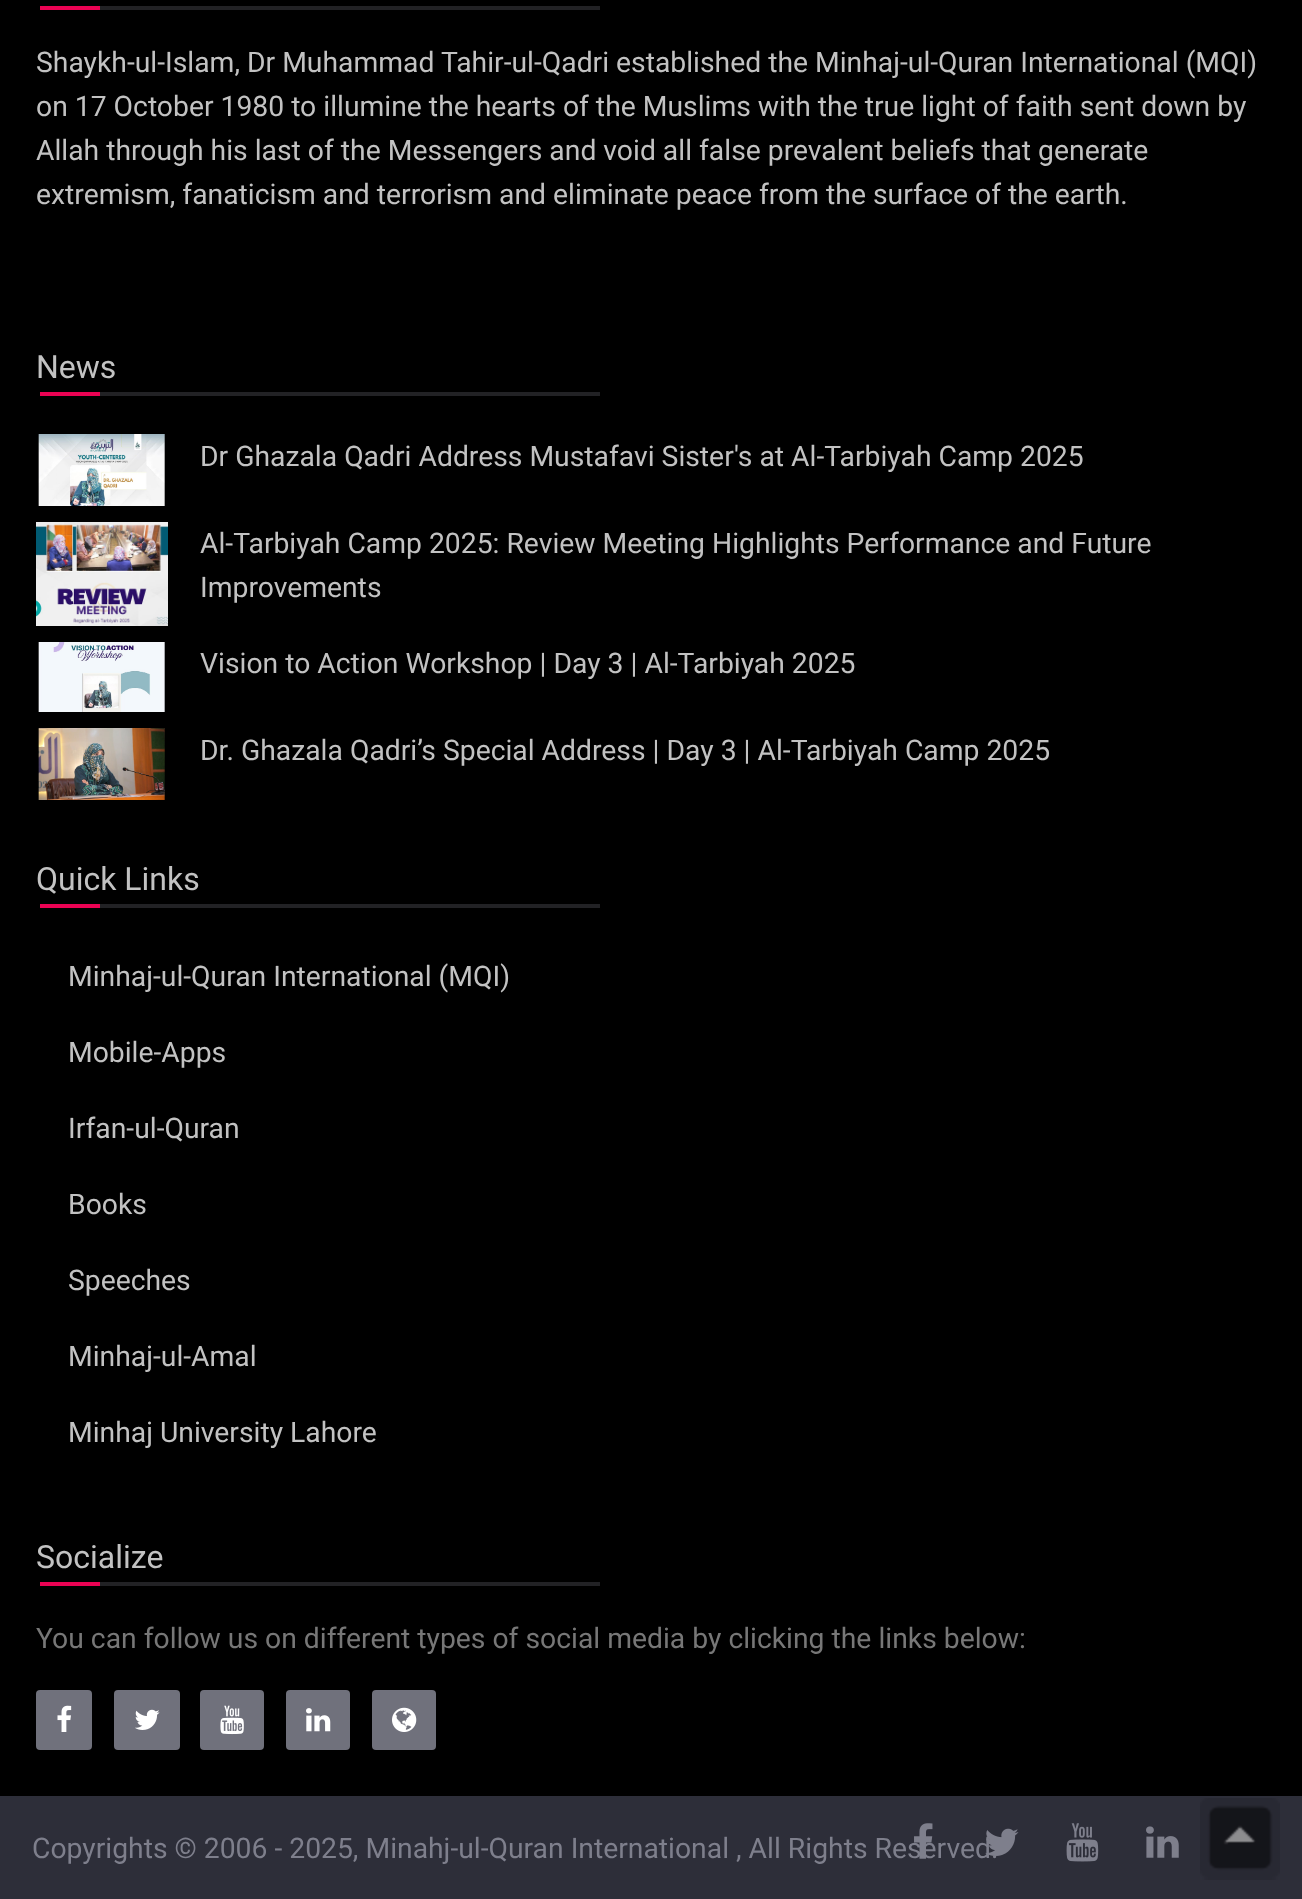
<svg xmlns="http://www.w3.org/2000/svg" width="1302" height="1899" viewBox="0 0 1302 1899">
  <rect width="100%" height="100%" fill="#000"/>
  <path d="M40 6h60v4H40z" fill="#ea0253"/>
  <path d="M100 6h500v4H100z" fill="#222225"/>
  <path d="M40 392h60v4H40z" fill="#ea0253"/>
  <path d="M100 392h500v4H100z" fill="#222225"/>
  <image x="38" y="434" width="127" height="72" href="img/1.png"/>
  <image x="36" y="522" width="132" height="104" href="img/2.png"/>
  <image x="38" y="642" width="127" height="70" href="img/3.png"/>
  <image x="38" y="728" width="127" height="72" href="img/4.png"/>
  <path d="M40 904h60v4H40z" fill="#ea0253"/>
  <path d="M100 904h500v4H100z" fill="#222225"/>
  <path d="M40 1582h60v4H40z" fill="#ea0253"/>
  <path d="M100 1582h500v4H100z" fill="#222225"/>
  <rect x="36" y="1690" width="56" height="60" rx="4" fill="#70717c"/>
  <image x="57" y="1705" width="15" height="27" href="img/5.png"/>
  <rect x="114" y="1690" width="66" height="60" rx="4" fill="#70717c"/>
  <image x="135" y="1709" width="25" height="21" href="img/6.png"/>
  <rect x="200" y="1690" width="64" height="60" rx="4" fill="#70717c"/>
  <image x="220" y="1705" width="24" height="30" href="img/7.png"/>
  <rect x="286" y="1690" width="64" height="60" rx="4" fill="#70717c"/>
  <image x="306" y="1708" width="25" height="24" href="img/8.png"/>
  <rect x="372" y="1690" width="64" height="60" rx="4" fill="#70717c"/>
  <image x="392" y="1707" width="25" height="25" href="img/9.png"/>
  <path d="M0 1796h1302v103H0z" fill="#2d2e39"/>
  <image x="1066" y="1823" width="33" height="39" href="img/12.png"/>
  <image x="1146" y="1826" width="33" height="32" href="img/13.png"/>
  <image x="1200" y="1798" width="80" height="82" href="img/14.png"/>
  <g font-family="Roboto" font-size="28.3" fill="#c2c2c2">
    <text x="36" y="72">Shaykh-ul-Islam, Dr Muhammad Tahir-ul-Qadri established the Minhaj-ul-Quran International (MQI)</text>
    <text x="36" y="116">on 17 October 1980 to illumine the hearts of the Muslims with the true light of faith sent down by</text>
    <text x="36" y="160">Allah through his last of the Messengers and void all false prevalent beliefs that generate</text>
    <text x="36" y="204">extremism, fanaticism and terrorism and eliminate peace from the surface of the earth.</text>
  </g>
  <text x="36" y="378" font-family="Roboto" font-size="32" fill="#c2c2c2">News</text>
  <g font-family="Roboto" font-size="28.3" fill="#c2c2c2">
    <text x="200" y="466">Dr Ghazala Qadri Address Mustafavi Sister's at Al-Tarbiyah Camp 2025</text>
    <text x="200" y="553">Al-Tarbiyah Camp 2025: Review Meeting Highlights Performance and Future</text>
    <text x="200" y="597">Improvements</text>
    <text x="200" y="673">Vision to Action Workshop | Day 3 | Al-Tarbiyah 2025</text>
    <text x="200" y="760">Dr. Ghazala Qadri’s Special Address | Day 3 | Al-Tarbiyah Camp 2025</text>
  </g>
  <text x="36" y="890" font-family="Roboto" font-size="32" fill="#c2c2c2">Quick Links</text>
  <g font-family="Roboto" font-size="28.3" fill="#c2c2c2">
    <text x="68" y="986">Minhaj-ul-Quran International (MQI)</text>
    <text x="68" y="1062">Mobile-Apps</text>
    <text x="68" y="1138">Irfan-ul-Quran</text>
    <text x="68" y="1214">Books</text>
    <text x="68" y="1290">Speeches</text>
    <text x="68" y="1366">Minhaj-ul-Amal</text>
    <text x="68" y="1442">Minhaj University Lahore</text>
  </g>
  <text x="36" y="1568" font-family="Roboto" font-size="32" fill="#c2c2c2">Socialize</text>
  <text x="36" y="1648" font-family="Roboto" font-size="28.3" fill="#777">You can follow us on different types of social media by clicking the links below:</text>
  <text x="32" y="1858" font-family="Roboto" font-size="28.3" fill="#7e7f8c">Copyrights © 2006 - 2025, Minahj-ul-Quran International , All Rights Reserved.</text>
  <image x="914" y="1823" width="19" height="36" href="img/10.png"/>
  <image x="985" y="1828" width="34" height="28" href="img/11.png"/>
</svg>
